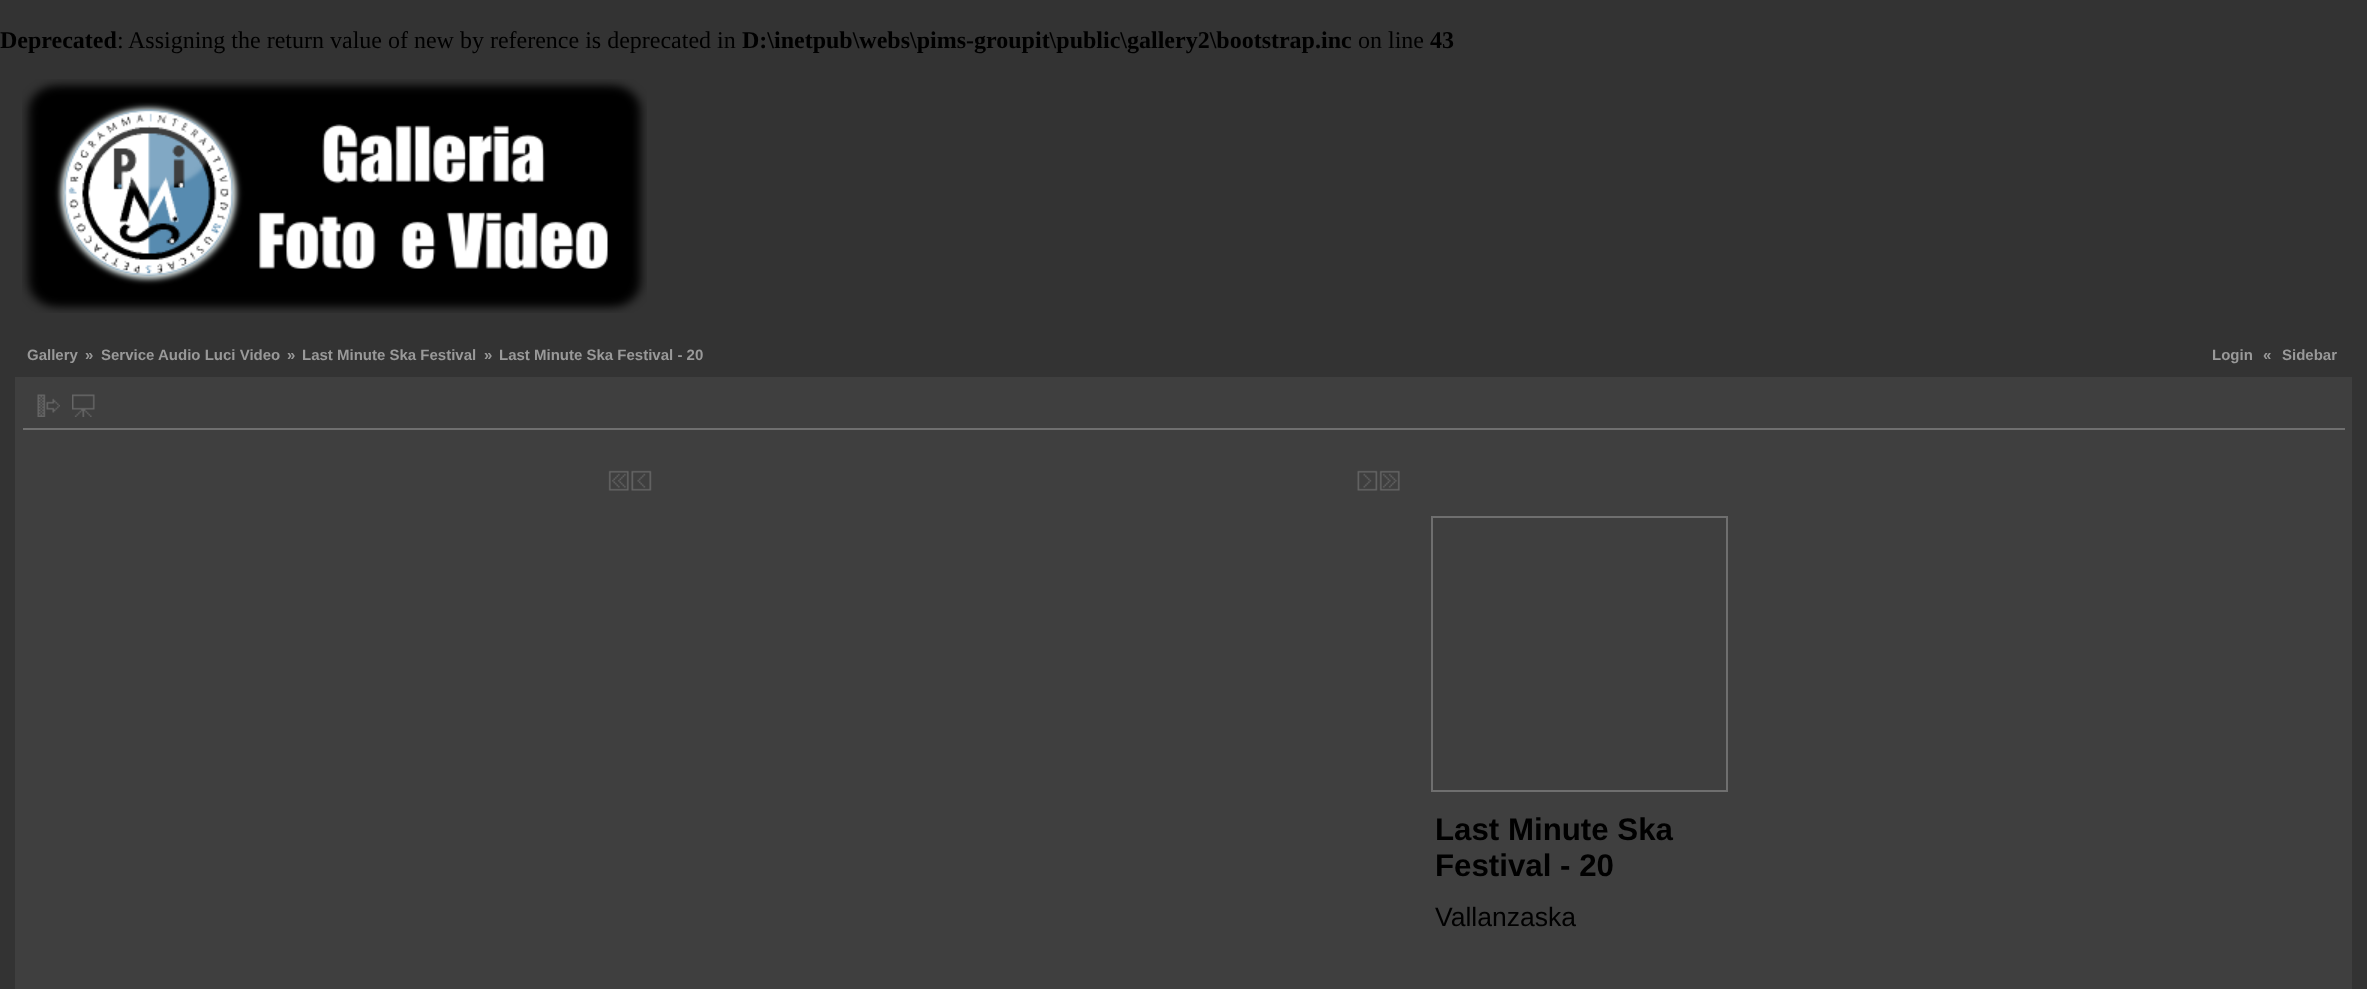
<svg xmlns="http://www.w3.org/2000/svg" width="2367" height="989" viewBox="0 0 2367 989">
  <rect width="100%" height="100%" fill="#333"/>
  <image x="22" y="79" width="625" height="234" href="img/1.png"/>
  <path d="M15 377h2337v612H15z" fill="#3f3f3f"/>
  <path d="M23 428h2322v2H23z" fill="#6f6f6f"/>
  <image x="37" y="394" width="23" height="23" href="img/2.png"/>
  <image x="72" y="394" width="23" height="23" href="img/3.png"/>
  <image x="608" y="470" width="21" height="21" href="img/4.png"/>
  <image x="631" y="470" width="21" height="21" href="img/5.png"/>
  <image x="1357" y="470" width="21" height="21" href="img/6.png"/>
  <image x="1379" y="470" width="21" height="21" href="img/7.png"/>
  <path d="M1432 517h295v274H1432z" fill="none" stroke="#6f6f6f" stroke-width="2"/>
  <text x="0" y="48" font-family="Liberation Serif" font-size="24" font-weight="bold" fill="#000">Deprecated</text>
  <g font-family="Liberation Serif" font-size="24" fill="#000">
    <text x="117" y="48">:</text>
    <text x="128" y="48">Assigning the return value of new by reference is deprecated in</text>
  </g>
  <text x="742" y="48" font-family="Liberation Serif" font-size="24" font-weight="bold" fill="#000">D:\inetpub\webs\pims-groupit\public\gallery2\bootstrap.inc</text>
  <text x="1358" y="48" font-family="Liberation Serif" font-size="24" fill="#000">on line</text>
  <text x="1430" y="48" font-family="Liberation Serif" font-size="24" font-weight="bold" fill="#000">43</text>
  <g font-family="Liberation Sans" font-size="15" font-weight="bold" fill="#999">
    <text x="27" y="360">Gallery</text>
    <text x="85" y="360">»</text>
    <text x="101" y="360">Service Audio Luci Video</text>
    <text x="287" y="360">»</text>
    <text x="302" y="360">Last Minute Ska Festival</text>
    <text x="484" y="360">»</text>
    <text x="499" y="360">Last Minute Ska Festival - 20</text>
    <text x="2212" y="360">Login</text>
    <text x="2263" y="360">«</text>
    <text x="2282" y="360">Sidebar</text>
  </g>
  <g font-family="Liberation Sans" font-size="31.25" font-weight="bold" fill="#000">
    <text x="1435" y="840">Last Minute Ska</text>
    <text x="1435" y="876">Festival - 20</text>
  </g>
  <text x="1435" y="926" font-family="Liberation Sans" font-size="26.5" fill="#000">Vallanzaska</text>
</svg>
